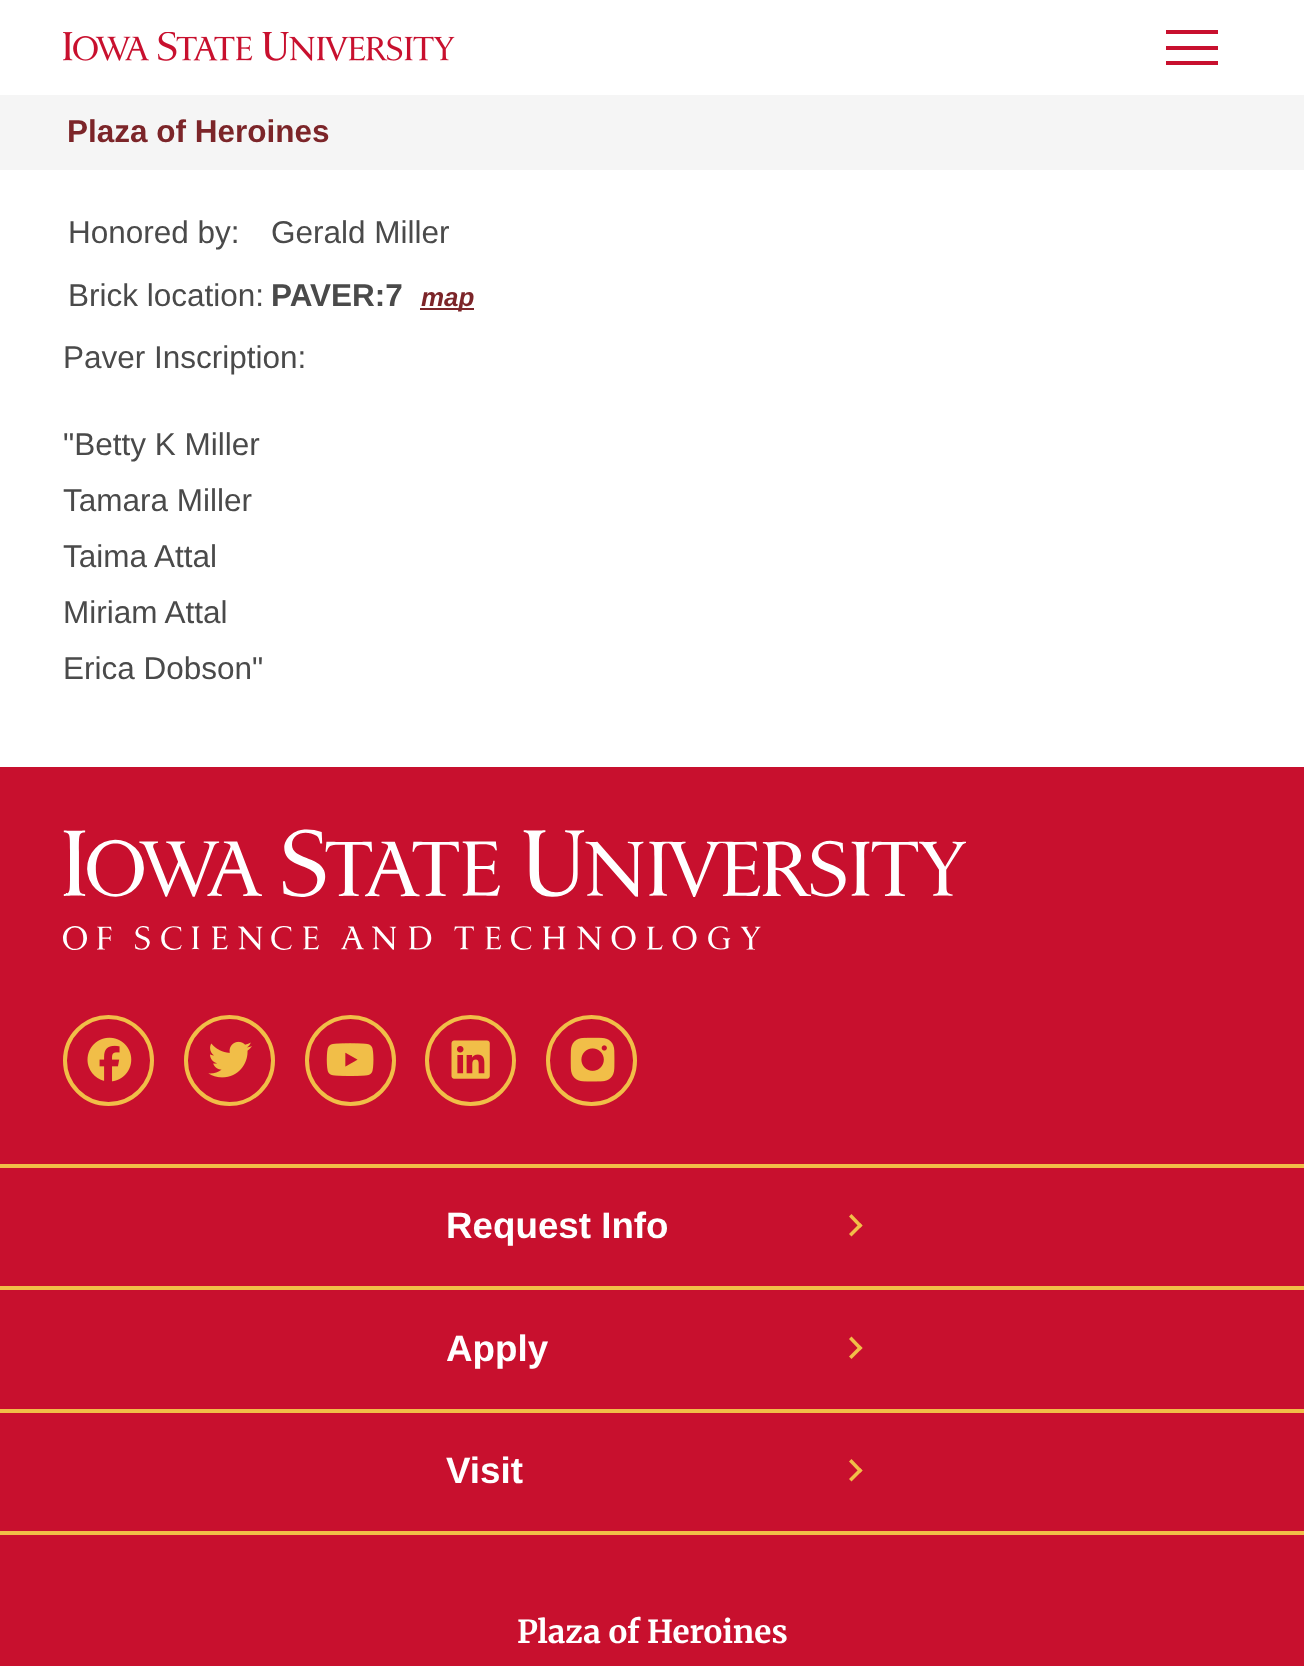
<svg xmlns="http://www.w3.org/2000/svg" width="1304" height="1666" viewBox="0 0 1304 1666">
  <rect width="100%" height="100%" fill="#fff"/>
  <path d="M1166 30h52v4H1166z" fill="#c8102e"/>
  <path d="M1166 46h52v4H1166z" fill="#c8102e"/>
  <path d="M1166 61h52v4H1166z" fill="#c8102e"/>
  <image x="63" y="32" width="392" height="29" href="img/1.png"/>
  <path d="M0 95h1304v75H0z" fill="#f5f5f5"/>
  <path d="M420 308h54v2H420z" fill="#7c2529"/>
  <path d="M0 767h1304v899H0z" fill="#c8102e"/>
  <image x="63" y="829" width="903" height="121" href="img/2.png"/>
  <circle cx="108.5" cy="1060.5" r="43.5" fill="none" stroke="#f1be48" stroke-width="4"/>
  <image x="87" y="1037" width="45" height="45" href="img/3.png"/>
  <circle cx="229.5" cy="1060.5" r="43.5" fill="none" stroke="#f1be48" stroke-width="4"/>
  <image x="208" y="1041" width="44" height="37" href="img/4.png"/>
  <circle cx="350.5" cy="1060.5" r="43.5" fill="none" stroke="#f1be48" stroke-width="4"/>
  <image x="326" y="1043" width="48" height="33" href="img/5.png"/>
  <circle cx="470.5" cy="1060.5" r="43.5" fill="none" stroke="#f1be48" stroke-width="4"/>
  <image x="451" y="1040" width="39" height="39" href="img/6.png"/>
  <circle cx="591.5" cy="1060.5" r="43.5" fill="none" stroke="#f1be48" stroke-width="4"/>
  <image x="570" y="1037" width="45" height="45" href="img/7.png"/>
  <path d="M0 1164h1304v4H0z" fill="#f1be48"/>
  <path d="M0 1286h1304v4H0z" fill="#f1be48"/>
  <path d="M849 1216.5L851.5 1214L862.5 1225.5L860 1228Z" fill="#f1be48"/>
  <path d="M849 1234L860 1223L862.5 1225.5L851.5 1236.5Z" fill="#f1be48"/>
  <path d="M0 1409h1304v4H0z" fill="#f1be48"/>
  <path d="M849 1339L851.5 1336.5L862.5 1348L860 1350.5Z" fill="#f1be48"/>
  <path d="M849 1356.5L860 1345.5L862.5 1348L851.5 1359Z" fill="#f1be48"/>
  <path d="M0 1531h1304v4H0z" fill="#f1be48"/>
  <path d="M849 1461.5L851.5 1459L862.5 1470.5L860 1473Z" fill="#f1be48"/>
  <path d="M849 1479L860 1468L862.5 1470.5L851.5 1481.5Z" fill="#f1be48"/>
  <text x="67" y="142" font-family="Liberation Sans" font-size="31.5" font-weight="bold" fill="#7c2529">Plaza of Heroines</text>
  <g font-family="Liberation Sans" font-size="31.5" fill="#4a4a4a">
    <text x="68" y="243">Honored by:</text>
    <text x="271" y="243">Gerald Miller</text>
    <text x="68" y="306">Brick location:</text>
  </g>
  <text x="271" y="306" font-family="Liberation Sans" font-size="31.5" font-weight="bold" fill="#4a4a4a">PAVER:7</text>
  <text x="421" y="306" font-family="Liberation Sans" font-size="26" font-weight="bold" font-style="italic" fill="#7c2529">map</text>
  <g font-family="Liberation Sans" font-size="31.5" fill="#4a4a4a">
    <text x="63" y="368">Paver Inscription:</text>
    <text x="63" y="455">"Betty K Miller</text>
    <text x="63" y="511">Tamara Miller</text>
    <text x="63" y="567">Taima Attal</text>
    <text x="63" y="623">Miriam Attal</text>
    <text x="63" y="679">Erica Dobson"</text>
  </g>
  <g font-family="Liberation Sans" font-size="36.75" font-weight="bold" fill="#fff">
    <text x="446" y="1238">Request Info</text>
    <text x="446" y="1361">Apply</text>
    <text x="446" y="1483">Visit</text>
  </g>
  <text x="517" y="1643" font-family="Merriweather" font-size="31.5" font-weight="bold" fill="#fff">Plaza of Heroines</text>
</svg>
